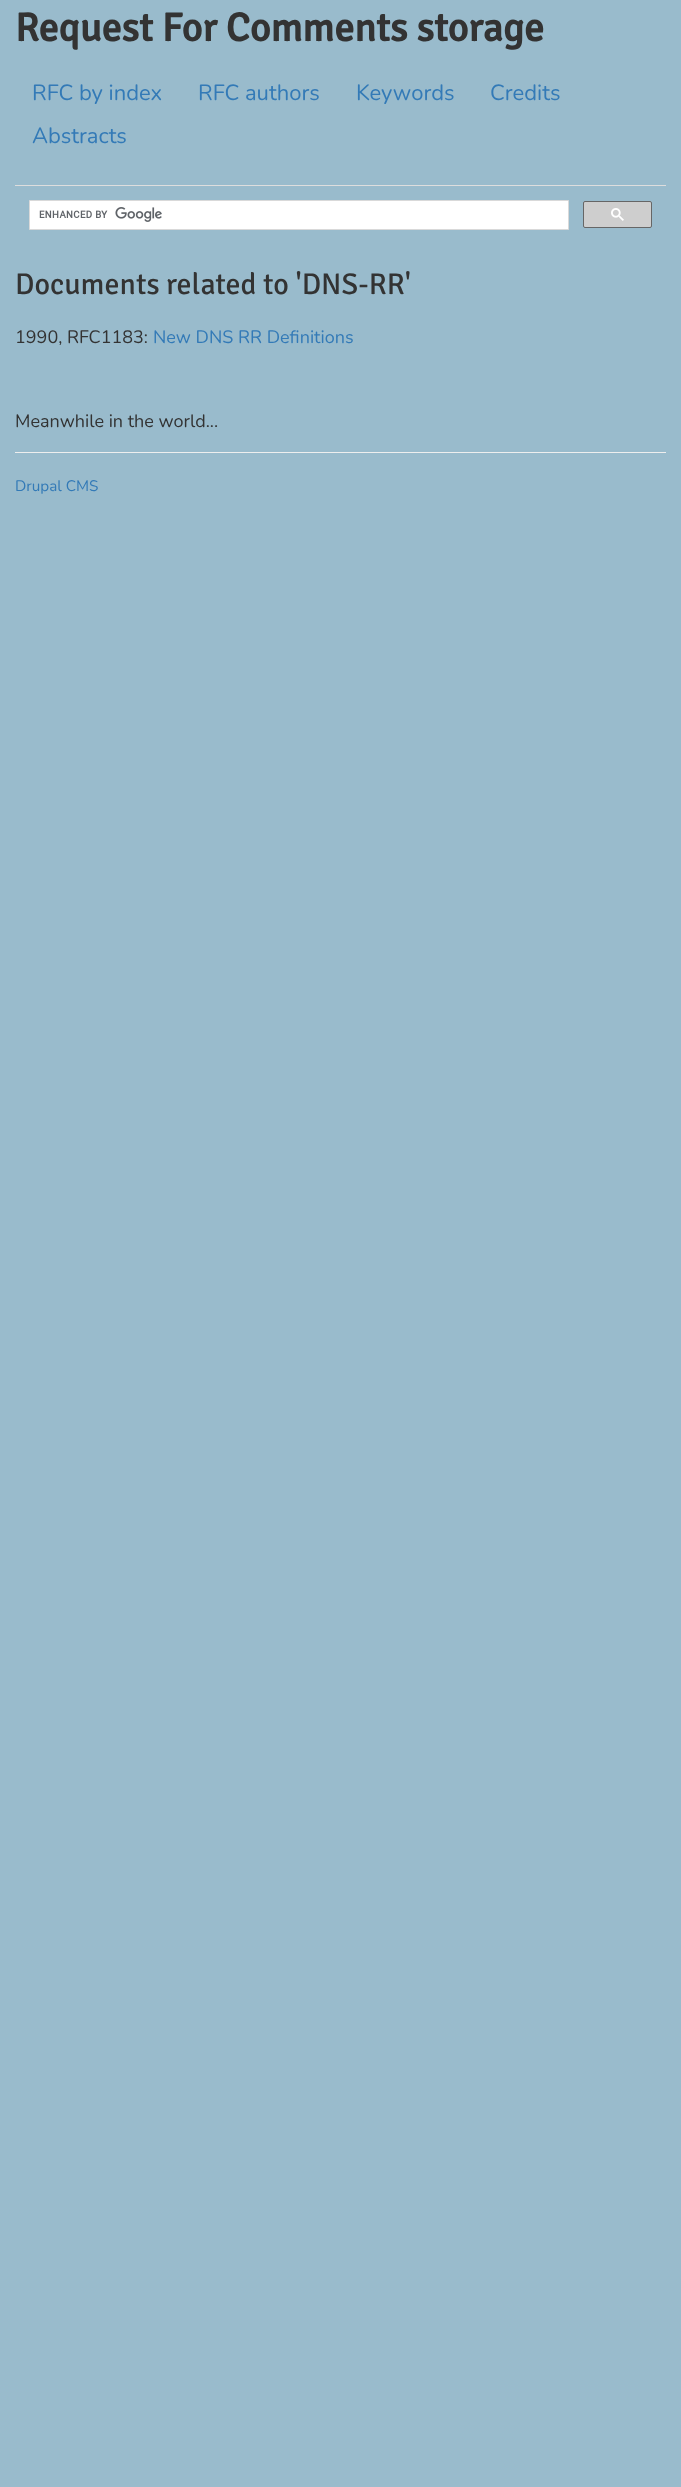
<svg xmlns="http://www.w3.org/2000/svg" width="681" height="2487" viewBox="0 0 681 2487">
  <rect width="100%" height="100%" fill="#9bc"/>
  <path d="M15 185h651v1H15z" fill="#ddd"/>
  <path d="M29.5 200.5h539v29H29.5z" fill="#fff" stroke="#d9d9d9"/>
  <image x="39" y="207" width="123" height="15" href="img/1.png"/>
  <rect x="583.5" y="201.5" width="68" height="26" rx="1.5" fill="#cecece" stroke="#666"/>
  <image x="611" y="208" width="13" height="13" href="img/2.png"/>
  <path d="M15 452h651v1H15z" fill="#eee"/>
  <text x="15" y="41" font-family="Signika" font-size="40" font-weight="bold" fill="#333">Request For Comments storage</text>
  <g font-family="Nunito" font-size="22" font-weight="200" fill="#337ab7">
    <text x="32" y="100">RFC by index</text>
    <text x="198" y="100">RFC authors</text>
    <text x="356" y="100">Keywords</text>
    <text x="490" y="100">Credits</text>
    <text x="32" y="143">Abstracts</text>
  </g>
  <text x="15" y="294" font-family="Signika" font-size="30" font-weight="300" fill="#333">Documents related to 'DNS-RR'</text>
  <text x="15" y="343" font-family="Nunito" font-size="18" font-weight="200" fill="#333">1990, RFC1183:</text>
  <text x="153" y="343" font-family="Nunito" font-size="18" font-weight="200" fill="#337ab7">New DNS RR Definitions</text>
  <text x="15" y="427" font-family="Nunito" font-size="18" font-weight="200" fill="#333">Meanwhile in the world...</text>
  <text x="15" y="491" font-family="Nunito" font-size="15.25" font-weight="200" fill="#337ab7">Drupal CMS</text>
</svg>
